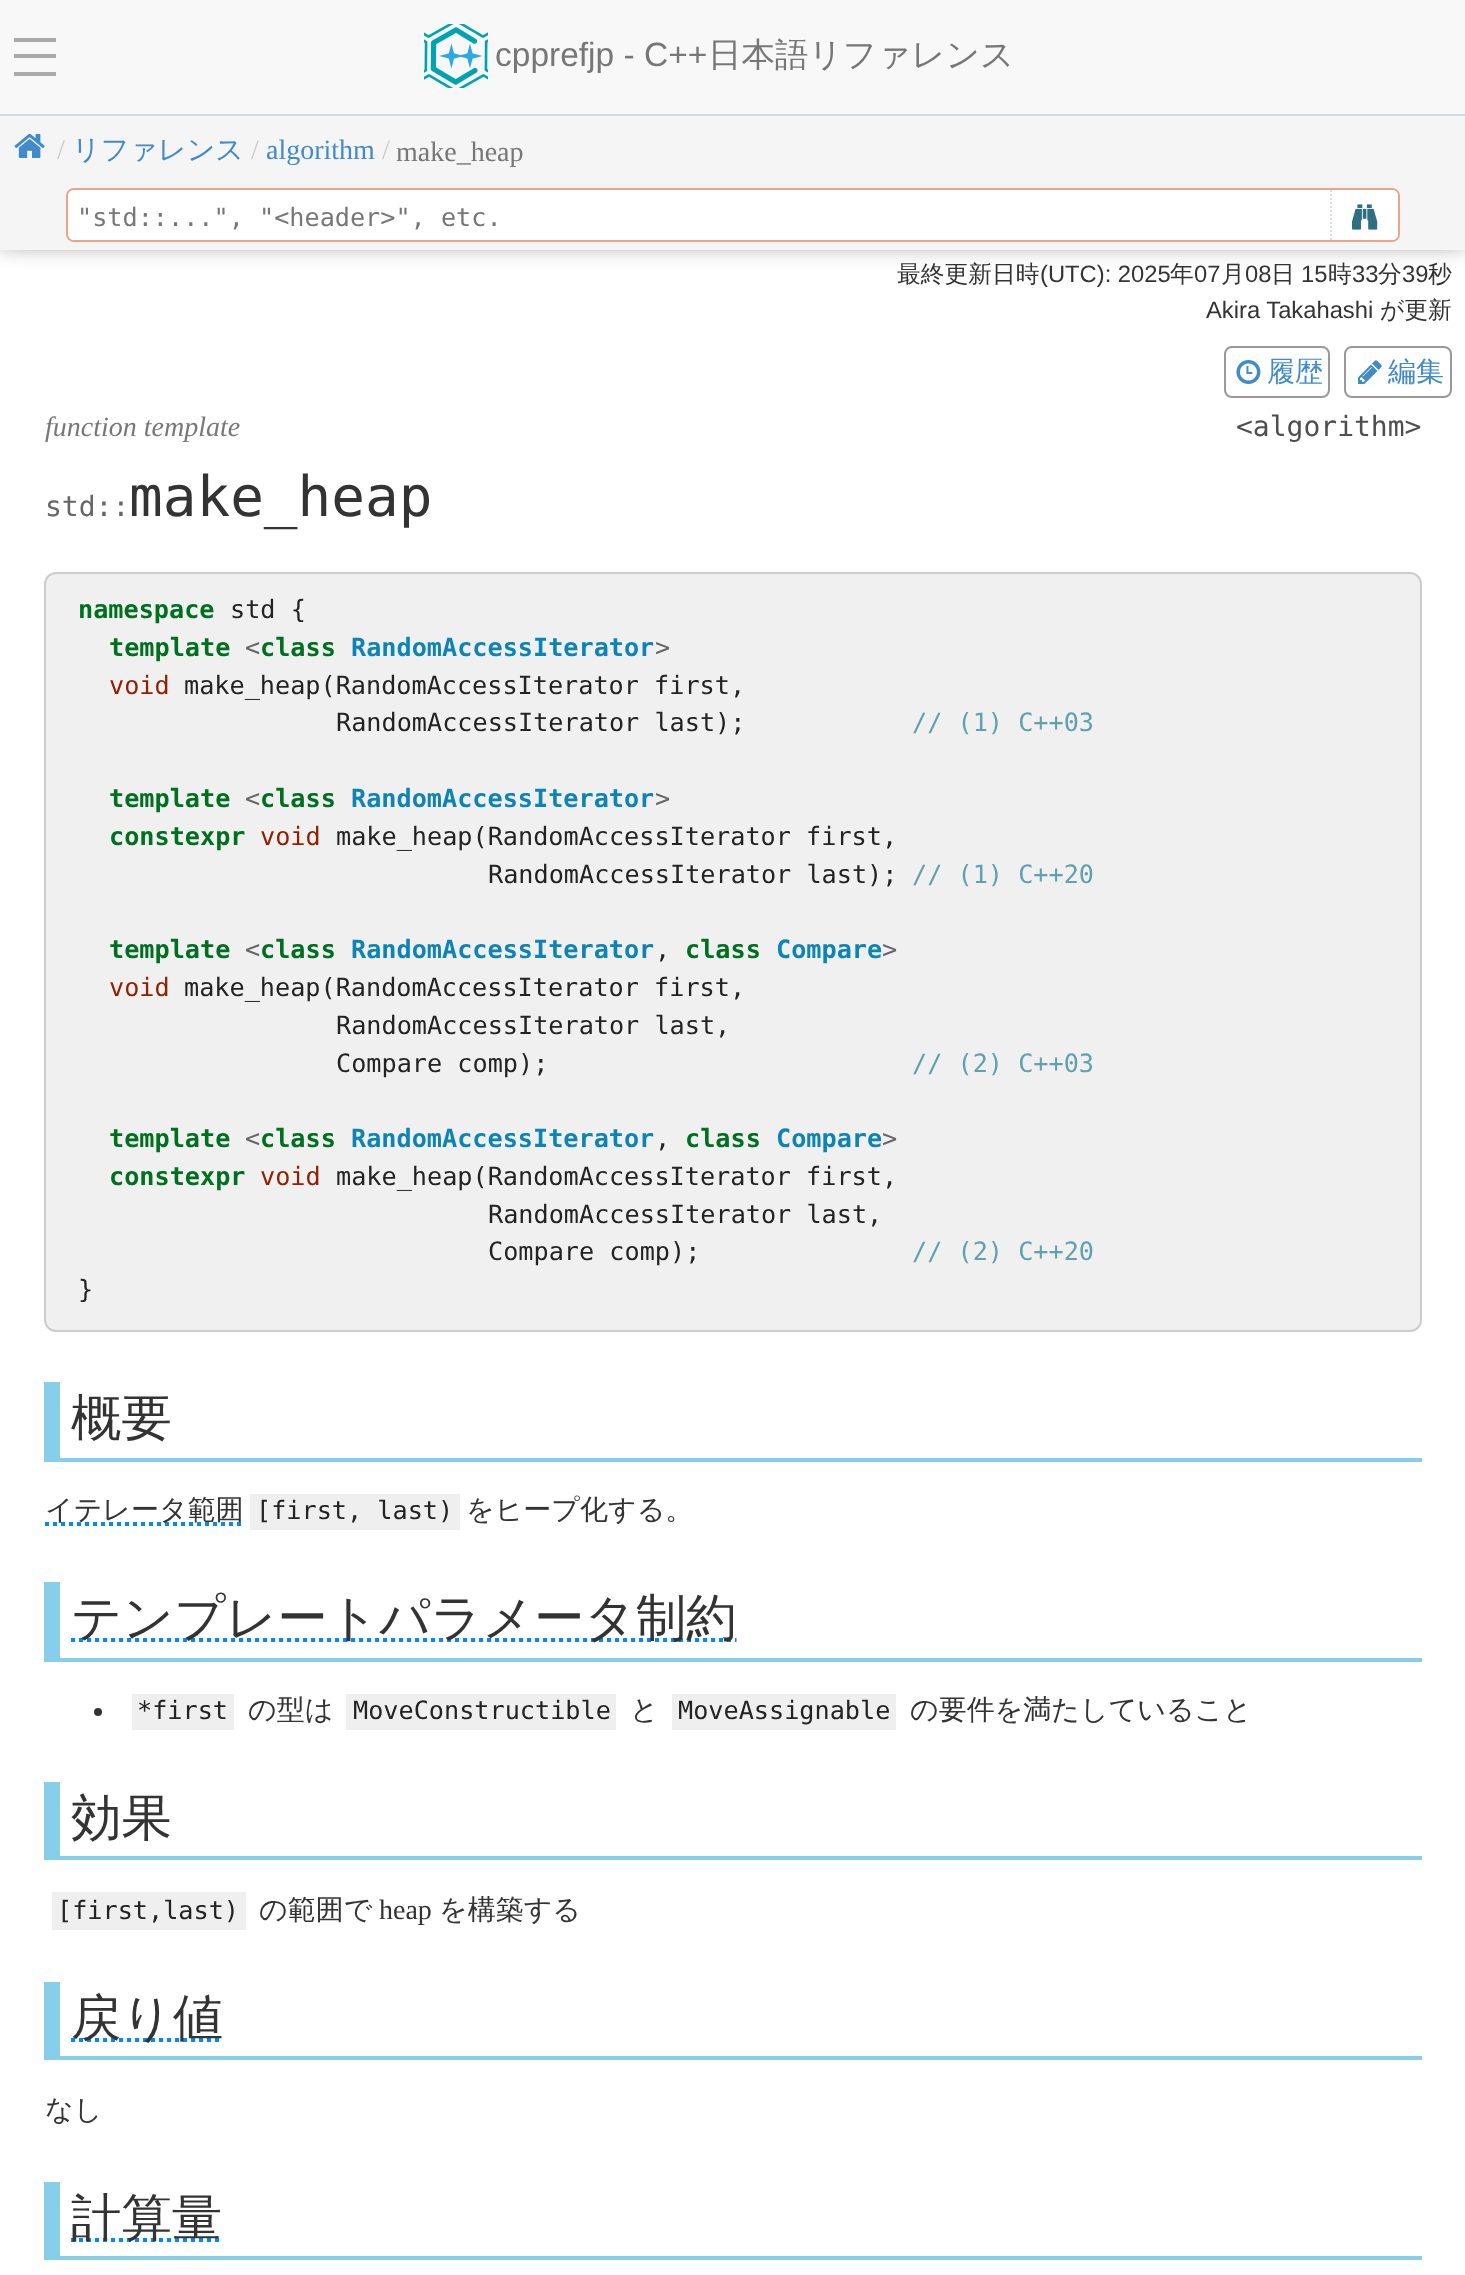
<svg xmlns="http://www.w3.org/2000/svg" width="1465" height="2275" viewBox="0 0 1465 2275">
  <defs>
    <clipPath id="clip1"><rect x="68" y="190" width="1330" height="50" rx="6"/></clipPath>
  </defs>
  <rect width="100%" height="100%" fill="#fff"/>
  <path d="M0 108h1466v134H0z" fill="#14141499" filter="blur(12px)"/>
  <path d="M0 0h1465v114H0z" fill="#f8f8f8"/>
  <path d="M0 114h1465v2H0z" fill="#d0dce0"/>
  <path d="M14 38h42v4H14z" fill="#aaa"/>
  <path d="M14 54h42v4H14z" fill="#aaa"/>
  <path d="M14 72h42v4H14z" fill="#aaa"/>
  <image x="424" y="24" width="64" height="64" href="img/1.png"/>
  <path d="M0 116h1465v134H0z" fill="#f5f5f5"/>
  <image x="14" y="134" width="31" height="24" href="img/2.png"/>
  <rect x="67" y="189" width="1332" height="52" rx="7" fill="none" stroke="#eba487" stroke-width="2"/>
  <rect x="68" y="190" width="1330" height="50" rx="6" fill="#fff"/>
  <path d="M1330 190H1392C1395.5 190 1398 192.5 1398 196V234C1398 237.5 1395.5 240 1392 240H1330Z" fill="#fff"/>
  <g clip-path="url(#clip1)">
    <path d="M1331 190V244" fill="none" stroke="#ddd" stroke-width="2" stroke-dasharray="2 2"/>
  </g>
  <image x="1352" y="204" width="26" height="26" href="img/3.png"/>
  <rect x="1225" y="347" width="104" height="50" rx="7" fill="none" stroke="#999" stroke-width="2"/>
  <image x="1236" y="360" width="25" height="24" href="img/4.png"/>
  <rect x="1345" y="347" width="106" height="50" rx="7" fill="none" stroke="#999" stroke-width="2"/>
  <image x="1358" y="360" width="24" height="24" href="img/5.png"/>
  <rect x="45" y="573" width="1376" height="758" rx="11" fill="#f0f0f0" stroke="#ccc" stroke-width="2"/>
  <path d="M60 1458h1362v4H60z" fill="#87ceeb"/>
  <path d="M44 1382h16v80H44z" fill="#87ceeb"/>
  <path d="M45 1524H243.5" fill="none" stroke="#08f" stroke-width="4" stroke-dasharray="4 4"/>
  <path d="M250 1494h210v36H250z" fill="#efefef"/>
  <path d="M60 1658h1362v4H60z" fill="#87ceeb"/>
  <path d="M44 1582h16v80H44z" fill="#87ceeb"/>
  <path d="M71 1640H736.5" fill="none" stroke="#08f" stroke-width="4" stroke-dasharray="4 4"/>
  <circle cx="98" cy="1712" r="4" fill="#333"/>
  <path d="M132 1694h102v36H132z" fill="#efefef"/>
  <path d="M346 1694h270v36H346z" fill="#efefef"/>
  <path d="M672 1694h224v36H672z" fill="#efefef"/>
  <path d="M60 1856h1362v4H60z" fill="#87ceeb"/>
  <path d="M44 1782h16v78H44z" fill="#87ceeb"/>
  <path d="M52 1892h194v38H52z" fill="#efefef"/>
  <path d="M60 2056h1362v4H60z" fill="#87ceeb"/>
  <path d="M44 1982h16v78H44z" fill="#87ceeb"/>
  <path d="M71 2040H223" fill="none" stroke="#08f" stroke-width="4" stroke-dasharray="4 4"/>
  <path d="M60 2256h1362v4H60z" fill="#87ceeb"/>
  <path d="M44 2182h16v78H44z" fill="#87ceeb"/>
  <path d="M71 2240H222" fill="none" stroke="#08f" stroke-width="4" stroke-dasharray="4 4"/>
  <text x="495" y="66" font-family="Liberation Sans" font-size="33.5" fill="#777">cpprefjp - C++</text>
  <text x="708" y="66" font-family="WenQuanYi Zen Hei" font-size="33.5" font-weight="500" fill="#777">日本語リファレンス</text>
  <text x="57" y="159" font-family="Liberation Serif" font-size="28" fill="#ccc">/</text>
  <text x="72" y="159" font-family="WenQuanYi Zen Hei" font-size="28" font-weight="500" fill="#428bca">リファレンス</text>
  <text x="251" y="159" font-family="Liberation Serif" font-size="28" fill="#ccc">/</text>
  <text x="266" y="159" font-family="Liberation Serif" font-size="28" fill="#428bca">algorithm</text>
  <text x="382" y="159" font-family="Liberation Serif" font-size="28" fill="#ccc">/</text>
  <text x="396" y="161" font-family="Liberation Serif" font-size="28" fill="#777">make_heap</text>
  <text x="77" y="226" font-family="DejaVu Sans Mono" font-size="25.2" fill="#777">"std::...", "&lt;header&gt;", etc.</text>
  <text x="897" y="282" font-family="WenQuanYi Zen Hei" font-size="23.75" font-weight="500" fill="#333">最終更新日時</text>
  <text x="1040" y="282" font-family="Liberation Sans" font-size="23.75" fill="#333">(UTC): 2025</text>
  <text x="1170" y="282" font-family="WenQuanYi Zen Hei" font-size="23.75" font-weight="500" fill="#333">年</text>
  <text x="1194" y="282" font-family="Liberation Sans" font-size="23.75" fill="#333">07</text>
  <text x="1221" y="282" font-family="WenQuanYi Zen Hei" font-size="23.75" font-weight="500" fill="#333">月</text>
  <text x="1245" y="282" font-family="Liberation Sans" font-size="23.75" fill="#333">08</text>
  <text x="1271" y="282" font-family="WenQuanYi Zen Hei" font-size="23.75" font-weight="500" fill="#333">日</text>
  <text x="1301" y="282" font-family="Liberation Sans" font-size="23.75" fill="#333">15</text>
  <text x="1328" y="282" font-family="WenQuanYi Zen Hei" font-size="23.75" font-weight="500" fill="#333">時</text>
  <text x="1352" y="282" font-family="Liberation Sans" font-size="23.75" fill="#333">33</text>
  <text x="1378" y="282" font-family="WenQuanYi Zen Hei" font-size="23.75" font-weight="500" fill="#333">分</text>
  <text x="1402" y="282" font-family="Liberation Sans" font-size="23.75" fill="#333">39</text>
  <text x="1428" y="282" font-family="WenQuanYi Zen Hei" font-size="23.75" font-weight="500" fill="#333">秒</text>
  <text x="1206" y="318" font-family="Liberation Sans" font-size="23.75" fill="#333">Akira Takahashi</text>
  <text x="1380" y="318" font-family="WenQuanYi Zen Hei" font-size="23.75" font-weight="500" fill="#333">が更新</text>
  <g font-family="WenQuanYi Zen Hei" font-size="28" font-weight="500" fill="#428bca">
    <text x="1267" y="381">履歴</text>
    <text x="1388" y="381">編集</text>
  </g>
  <text x="45" y="436" font-family="Liberation Serif" font-size="28" font-style="italic" fill="#777">function template</text>
  <text x="1236" y="436" font-family="DejaVu Sans Mono" font-size="28" fill="#4e4e4e">&lt;algorithm&gt;</text>
  <text x="45" y="516" font-family="DejaVu Sans Mono" font-size="28" fill="#666">std::</text>
  <text x="129" y="516" font-family="DejaVu Sans Mono" font-size="56" fill="#333">make_heap</text>
  <text x="78" y="618" font-family="DejaVu Sans Mono" font-size="25.2" font-weight="bold" fill="#007020">namespace</text>
  <text x="230" y="618" font-family="DejaVu Sans Mono" font-size="25.2" fill="#232323">std {</text>
  <text x="109" y="656" font-family="DejaVu Sans Mono" font-size="25.2" font-weight="bold" fill="#007020">template</text>
  <text x="245" y="656" font-family="DejaVu Sans Mono" font-size="25.2" fill="#666">&lt;</text>
  <text x="260" y="656" font-family="DejaVu Sans Mono" font-size="25.2" font-weight="bold" fill="#007020">class</text>
  <text x="351" y="656" font-family="DejaVu Sans Mono" font-size="25.2" font-weight="bold" fill="#0e84b5">RandomAccessIterator</text>
  <text x="655" y="656" font-family="DejaVu Sans Mono" font-size="25.2" fill="#666">&gt;</text>
  <text x="109" y="694" font-family="DejaVu Sans Mono" font-size="25.2" fill="#902000">void</text>
  <g font-family="DejaVu Sans Mono" font-size="25.2" fill="#232323">
    <text x="184" y="694">make_heap(RandomAccessIterator first,</text>
    <text x="336" y="731">RandomAccessIterator last);</text>
  </g>
  <text x="912" y="731" font-family="DejaVu Sans Mono" font-size="25.2" fill="#60a0b0">// (1) C++03</text>
  <text x="109" y="807" font-family="DejaVu Sans Mono" font-size="25.2" font-weight="bold" fill="#007020">template</text>
  <text x="245" y="807" font-family="DejaVu Sans Mono" font-size="25.2" fill="#666">&lt;</text>
  <text x="260" y="807" font-family="DejaVu Sans Mono" font-size="25.2" font-weight="bold" fill="#007020">class</text>
  <text x="351" y="807" font-family="DejaVu Sans Mono" font-size="25.2" font-weight="bold" fill="#0e84b5">RandomAccessIterator</text>
  <text x="655" y="807" font-family="DejaVu Sans Mono" font-size="25.2" fill="#666">&gt;</text>
  <text x="109" y="845" font-family="DejaVu Sans Mono" font-size="25.2" font-weight="bold" fill="#007020">constexpr</text>
  <text x="260" y="845" font-family="DejaVu Sans Mono" font-size="25.2" fill="#902000">void</text>
  <g font-family="DejaVu Sans Mono" font-size="25.2" fill="#232323">
    <text x="336" y="845">make_heap(RandomAccessIterator first,</text>
    <text x="488" y="883">RandomAccessIterator last);</text>
  </g>
  <text x="912" y="883" font-family="DejaVu Sans Mono" font-size="25.2" fill="#60a0b0">// (1) C++20</text>
  <text x="109" y="958" font-family="DejaVu Sans Mono" font-size="25.2" font-weight="bold" fill="#007020">template</text>
  <text x="245" y="958" font-family="DejaVu Sans Mono" font-size="25.2" fill="#666">&lt;</text>
  <text x="260" y="958" font-family="DejaVu Sans Mono" font-size="25.2" font-weight="bold" fill="#007020">class</text>
  <text x="351" y="958" font-family="DejaVu Sans Mono" font-size="25.2" font-weight="bold" fill="#0e84b5">RandomAccessIterator</text>
  <text x="685" y="958" font-family="DejaVu Sans Mono" font-size="25.2" font-weight="bold" fill="#007020">class</text>
  <text x="776" y="958" font-family="DejaVu Sans Mono" font-size="25.2" font-weight="bold" fill="#0e84b5">Compare</text>
  <text x="882" y="958" font-family="DejaVu Sans Mono" font-size="25.2" fill="#666">&gt;</text>
  <text x="655" y="958" font-family="DejaVu Sans Mono" font-size="25.2" fill="#232323">,</text>
  <text x="109" y="996" font-family="DejaVu Sans Mono" font-size="25.2" fill="#902000">void</text>
  <g font-family="DejaVu Sans Mono" font-size="25.2" fill="#232323">
    <text x="184" y="996">make_heap(RandomAccessIterator first,</text>
    <text x="336" y="1034">RandomAccessIterator last,</text>
    <text x="336" y="1072">Compare comp);</text>
  </g>
  <text x="912" y="1072" font-family="DejaVu Sans Mono" font-size="25.2" fill="#60a0b0">// (2) C++03</text>
  <text x="109" y="1147" font-family="DejaVu Sans Mono" font-size="25.2" font-weight="bold" fill="#007020">template</text>
  <text x="245" y="1147" font-family="DejaVu Sans Mono" font-size="25.2" fill="#666">&lt;</text>
  <text x="260" y="1147" font-family="DejaVu Sans Mono" font-size="25.2" font-weight="bold" fill="#007020">class</text>
  <text x="351" y="1147" font-family="DejaVu Sans Mono" font-size="25.2" font-weight="bold" fill="#0e84b5">RandomAccessIterator</text>
  <text x="685" y="1147" font-family="DejaVu Sans Mono" font-size="25.2" font-weight="bold" fill="#007020">class</text>
  <text x="776" y="1147" font-family="DejaVu Sans Mono" font-size="25.2" font-weight="bold" fill="#0e84b5">Compare</text>
  <text x="882" y="1147" font-family="DejaVu Sans Mono" font-size="25.2" fill="#666">&gt;</text>
  <text x="655" y="1147" font-family="DejaVu Sans Mono" font-size="25.2" fill="#232323">,</text>
  <text x="109" y="1185" font-family="DejaVu Sans Mono" font-size="25.2" font-weight="bold" fill="#007020">constexpr</text>
  <text x="260" y="1185" font-family="DejaVu Sans Mono" font-size="25.2" fill="#902000">void</text>
  <g font-family="DejaVu Sans Mono" font-size="25.2" fill="#232323">
    <text x="336" y="1185">make_heap(RandomAccessIterator first,</text>
    <text x="488" y="1223">RandomAccessIterator last,</text>
    <text x="488" y="1260">Compare comp);</text>
  </g>
  <text x="912" y="1260" font-family="DejaVu Sans Mono" font-size="25.2" fill="#60a0b0">// (2) C++20</text>
  <text x="78" y="1298" font-family="DejaVu Sans Mono" font-size="25.2" fill="#232323">}</text>
  <text x="71" y="1435" font-family="WenQuanYi Zen Hei" font-size="50.4" font-weight="500" fill="#333">概要</text>
  <text x="45" y="1519" font-family="WenQuanYi Zen Hei" font-size="28" font-weight="500" fill="#333">イテレータ範囲</text>
  <text x="256" y="1519" font-family="DejaVu Sans Mono" font-size="25.2" fill="#232323">[first, last)</text>
  <text x="466" y="1519" font-family="WenQuanYi Zen Hei" font-size="28" font-weight="500" fill="#333">をヒープ化する。</text>
  <text x="71" y="1635" font-family="WenQuanYi Zen Hei" font-size="50.4" font-weight="500" fill="#333">テンプレートパラメータ制約</text>
  <text x="137" y="1719" font-family="DejaVu Sans Mono" font-size="25.2" fill="#232323">*first</text>
  <text x="248" y="1719" font-family="WenQuanYi Zen Hei" font-size="28" font-weight="500" fill="#333">の型は</text>
  <text x="353" y="1719" font-family="DejaVu Sans Mono" font-size="25.2" fill="#232323">MoveConstructible</text>
  <text x="630" y="1719" font-family="WenQuanYi Zen Hei" font-size="28" font-weight="500" fill="#333">と</text>
  <text x="678" y="1719" font-family="DejaVu Sans Mono" font-size="25.2" fill="#232323">MoveAssignable</text>
  <text x="910" y="1719" font-family="WenQuanYi Zen Hei" font-size="28" font-weight="500" fill="#333">の要件を満たしていること</text>
  <text x="71" y="1835" font-family="WenQuanYi Zen Hei" font-size="50.4" font-weight="500" fill="#333">効果</text>
  <text x="57" y="1919" font-family="DejaVu Sans Mono" font-size="25.2" fill="#232323">[first,last)</text>
  <text x="259" y="1919" font-family="WenQuanYi Zen Hei" font-size="28" font-weight="500" fill="#333">の範囲で</text>
  <text x="379" y="1919" font-family="Liberation Serif" font-size="28" fill="#333">heap</text>
  <text x="439" y="1919" font-family="WenQuanYi Zen Hei" font-size="28" font-weight="500" fill="#333">を構築する</text>
  <text x="71" y="2035" font-family="WenQuanYi Zen Hei" font-size="50.4" font-weight="500" fill="#333">戻り値</text>
  <text x="45" y="2119" font-family="WenQuanYi Zen Hei" font-size="28" font-weight="500" fill="#333">なし</text>
  <text x="71" y="2235" font-family="WenQuanYi Zen Hei" font-size="50.4" font-weight="500" fill="#333">計算量</text>
</svg>
